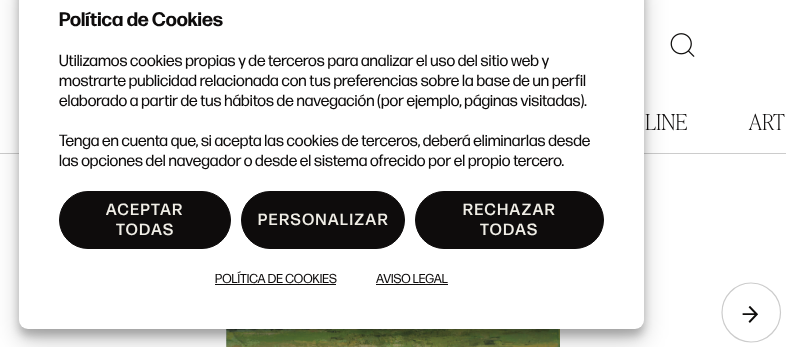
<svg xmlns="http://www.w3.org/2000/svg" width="786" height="347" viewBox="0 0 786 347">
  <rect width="100%" height="100%" fill="#fff"/>
  <path d="M0 153h786v1H0z" fill="#ccc"/>
  <image x="226" y="329" width="334" height="18" href="img/2.png"/>
  <rect x="19" y="-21" width="625" height="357" rx="9" fill="#0000003b" filter="blur(4px)"/>
  <image x="670" y="33" width="25" height="24" href="img/1.png"/>
  <rect x="19" y="-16" width="625" height="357" rx="9" fill="#00000030" filter="blur(12.5px)"/>
  <rect x="19" y="-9" width="625" height="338" rx="9" fill="#fff"/>
  <rect x="59.5" y="191.5" width="171" height="57" rx="28.5" fill="#0e0c0c" stroke="#0e0c0c"/>
  <rect x="241.5" y="191.5" width="163" height="57" rx="28.5" fill="#0e0c0c" stroke="#0e0c0c"/>
  <rect x="415.5" y="191.5" width="188" height="57" rx="28.5" fill="#0e0c0c" stroke="#0e0c0c"/>
  <path d="M215 284h121v1H215z" fill="#0e0c0c"/>
  <path d="M376 284h72v1H376z" fill="#0e0c0c"/>
  <path d="M751 342C735 342 722 328.5 722 312.5C722 296.5 735 283 751 283C767.5 283 780.5 296.5 780.5 312.5C780.5 328.5 767.5 342 751 342Z" fill="none" stroke="#ccc" stroke-width="1.2"/>
  <image x="742" y="306" width="16" height="17" href="img/3.png"/>
  <text x="59" y="26" font-family="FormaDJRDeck" font-size="19.5" font-weight="bold" fill="#0e0c0c">Política de Cookies</text>
  <g font-family="FormaDJRDeck" font-size="16.25" fill="#0e0c0c">
    <text x="59" y="66">Utilizamos cookies propias y de terceros para analizar el uso del sitio web y</text>
    <text x="59" y="86">mostrarte publicidad relacionada con tus preferencias sobre la base de un perfil</text>
    <text x="59" y="106">elaborado a partir de tus hábitos de navegación (por ejemplo, páginas visitadas).</text>
    <text x="59" y="146">Tenga en cuenta que, si acepta las cookies de terceros, deberá eliminarlas desde</text>
    <text x="59" y="166">las opciones del navegador o desde el sistema ofrecido por el propio tercero.</text>
  </g>
  <g font-family="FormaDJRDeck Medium" font-size="16.25" font-weight="500" letter-spacing="1.6" fill="#f0eee6">
    <text x="106" y="215">ACEPTAR</text>
    <text x="116" y="235">TODAS</text>
    <text x="258" y="225">PERSONALIZAR</text>
    <text x="463" y="215">RECHAZAR</text>
    <text x="480" y="235">TODAS</text>
  </g>
  <g font-family="FormaDJRDeck" font-size="13" fill="#0e0c0c">
    <text x="215" y="283">POLÍTICA DE COOKIES</text>
    <text x="376" y="283">AVISO LEGAL</text>
  </g>
  <g font-family="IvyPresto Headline" font-size="22" font-weight="100" fill="#0e0c0c">
    <text x="645" y="130">LINE</text>
    <text x="749" y="130">ART</text>
  </g>
</svg>
